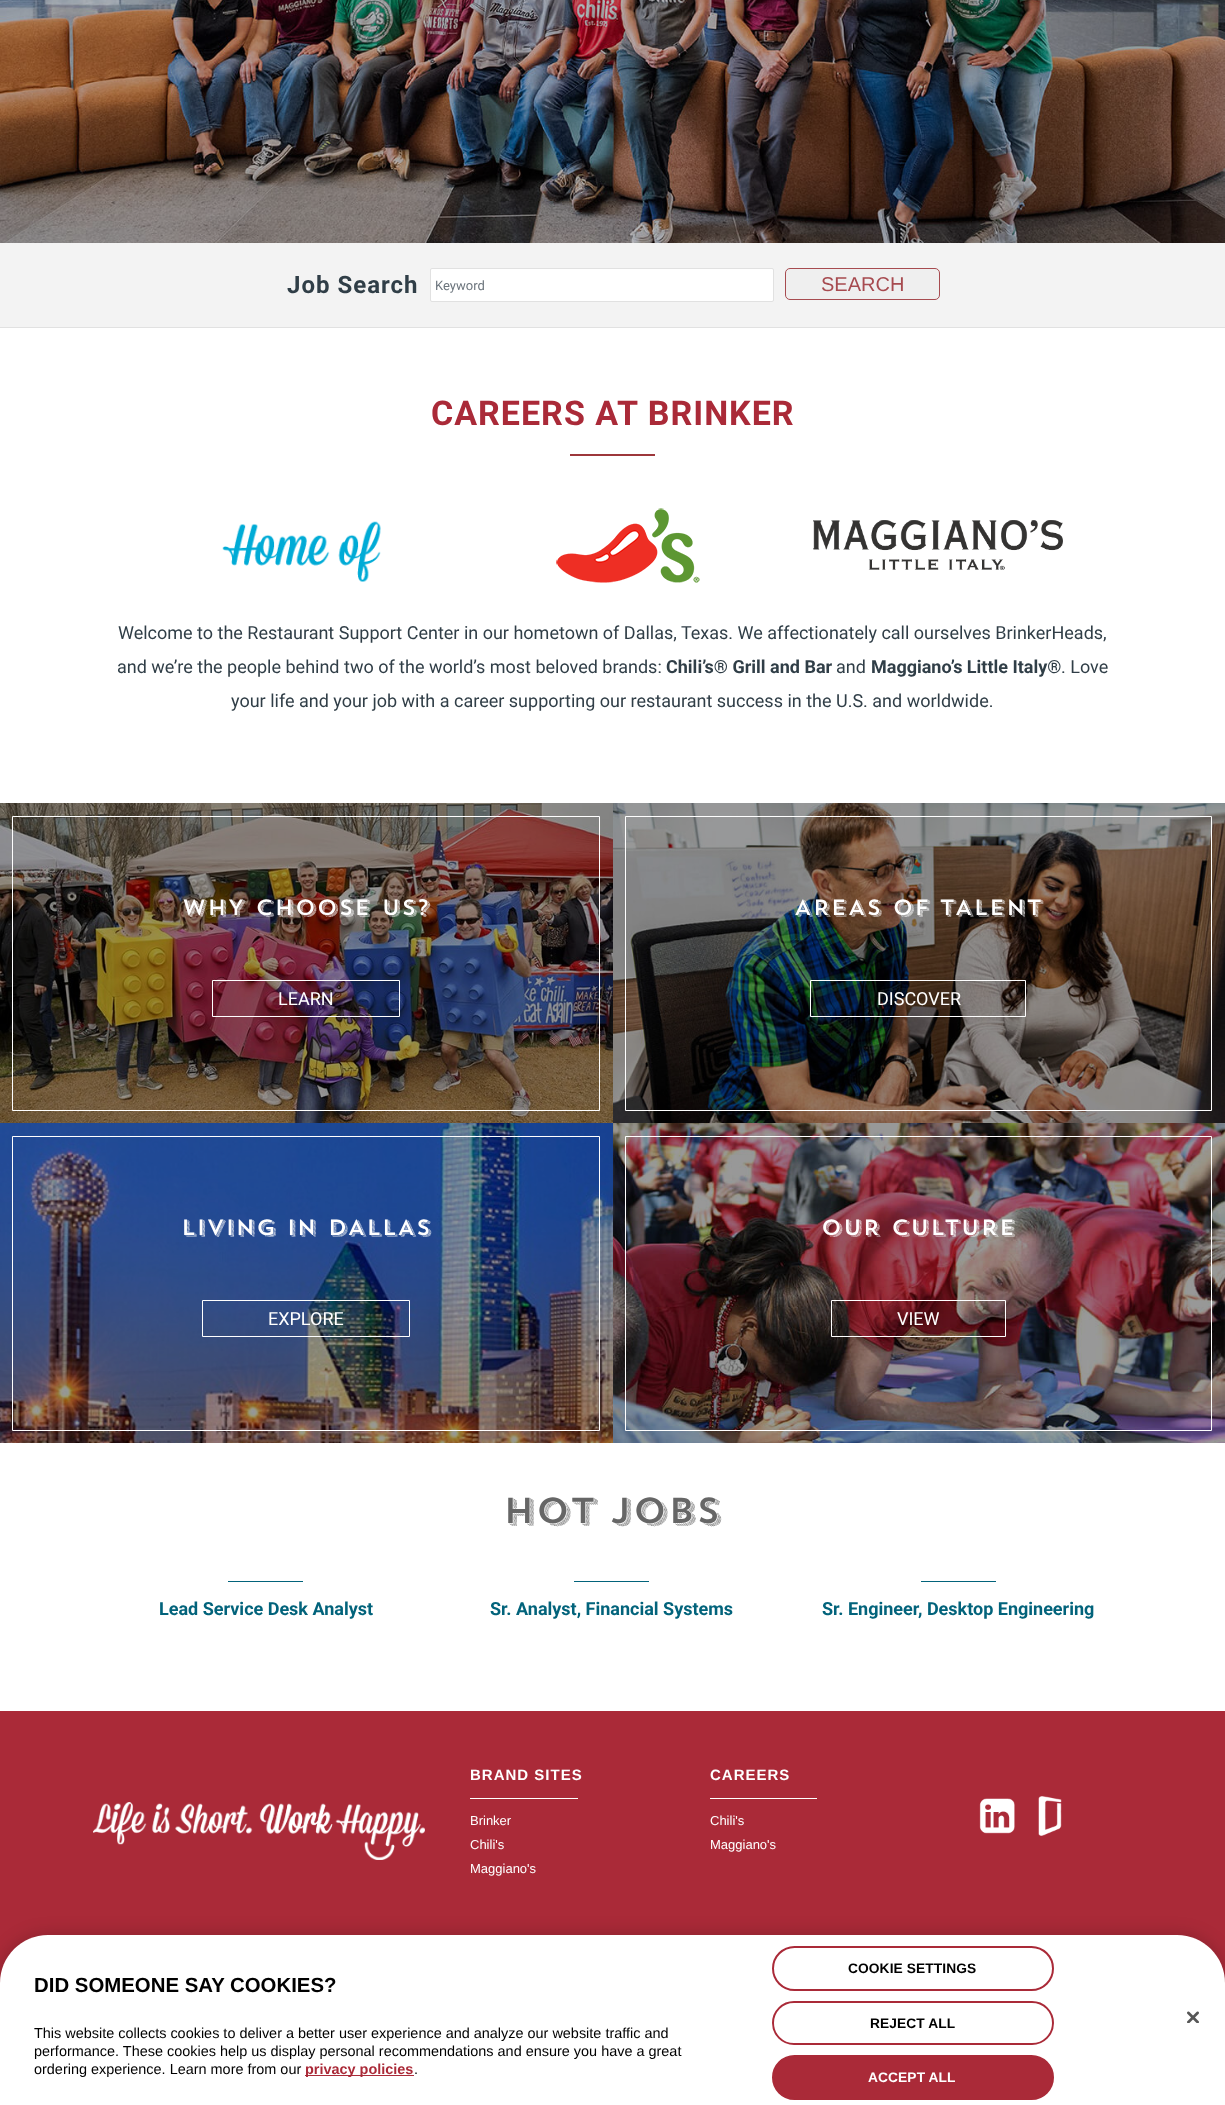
<svg xmlns="http://www.w3.org/2000/svg" width="1225" height="2105" viewBox="0 0 1225 2105">
  <rect width="100%" height="100%" fill="#fff"/>
  <image x="0" y="0" width="1225" height="243" href="img/1.png"/>
  <path d="M0 243h1225v84H0z" fill="#f3f3f3"/>
  <path d="M0 327h1225v1H0z" fill="#e1e1e1"/>
  <rect x="430.5" y="268.5" width="343" height="33" rx="1.5" fill="#fff" stroke="#e1e1e1"/>
  <rect x="785.5" y="268.5" width="154" height="31" rx="4.5" fill="#efefef" stroke="#a74b50"/>
  <path d="M570 454h85v2H570z" fill="#9d373b"/>
  <image x="222" y="521" width="159" height="61" href="img/2.png"/>
  <image x="556" y="508" width="144" height="75" href="img/3.png"/>
  <image x="813" y="520" width="250" height="50" href="img/4.png"/>
  <image x="0" y="803" width="613" height="320" href="img/5.png"/>
  <path d="M12.5 816.5h587v294H12.5z" fill="none" stroke="#fff"/>
  <path d="M212.5 980.5h187v36H212.5z" fill="none" stroke="#fff"/>
  <image x="613" y="803" width="612" height="320" href="img/6.png"/>
  <path d="M625.5 816.5h586v294H625.5z" fill="none" stroke="#fff"/>
  <path d="M810.5 980.5h215v36H810.5z" fill="none" stroke="#fff"/>
  <image x="0" y="1123" width="613" height="320" href="img/7.png"/>
  <path d="M12.5 1136.5h587v294H12.5z" fill="none" stroke="#fff"/>
  <path d="M202.5 1300.5h207v36H202.5z" fill="none" stroke="#fff"/>
  <image x="613" y="1123" width="612" height="320" href="img/8.png"/>
  <path d="M625.5 1136.5h586v294H625.5z" fill="none" stroke="#fff"/>
  <path d="M831.5 1300.5h174v36H831.5z" fill="none" stroke="#fff"/>
  <path d="M228 1581h75v1H228z" fill="#02637b"/>
  <path d="M574 1581h75v1H574z" fill="#02637b"/>
  <path d="M921 1581h75v1H921z" fill="#02637b"/>
  <path d="M0 1711h1225v272H0z" fill="#aa2a38"/>
  <image x="93" y="1802" width="332" height="58" href="img/9.png"/>
  <path d="M470 1798h108v1H470z" fill="#fff"/>
  <path d="M710 1798h107v1H710z" fill="#fff"/>
  <image x="979" y="1798" width="36" height="36" href="img/10.png"/>
  <image x="1038" y="1796" width="24" height="40" href="img/11.png"/>
  <rect y="1935" width="1225" height="170" rx="48" fill="#00000033" filter="blur(9px)"/>
  <path d="M48 1935H1177C1203.5 1935 1225 1956.5 1225 1983V2105H0V1983C0 1956.5 21.5 1935 48 1935Z" fill="#fff"/>
  <path d="M305 2075h109v1H305z" fill="#aa2a38"/>
  <rect x="773" y="1947" width="280" height="43" rx="21.5" fill="none" stroke="#aa2a38" stroke-width="2"/>
  <rect x="773" y="2002" width="280" height="42" rx="21" fill="none" stroke="#aa2a38" stroke-width="2"/>
  <rect x="773" y="2056" width="280" height="43" rx="21.5" fill="#aa2a38" stroke="#aa2a38" stroke-width="2"/>
  <image x="1187" y="2011" width="12" height="12" href="img/12.png"/>
  <text x="287" y="293" font-family="Roboto" font-size="24" font-weight="bold" letter-spacing="1" fill="#303e47">Job Search</text>
  <text x="435" y="290" font-family="Roboto" font-size="13" fill="#6c757d">Keyword</text>
  <text x="821" y="291" font-family="Liberation Sans" font-size="20" fill="#a74b50">SEARCH</text>
  <text x="431" y="425" font-family="Roboto" font-size="34" font-weight="bold" letter-spacing="1" fill="#aa2a38">CAREERS AT BRINKER</text>
  <g font-family="Roboto" font-size="18" fill="#303e47">
    <text x="118" y="639">Welcome to the Restaurant Support Center in our hometown of Dallas, Texas. We affectionately call ourselves BrinkerHeads,</text>
    <text x="117" y="673">and we’re the people behind two of the world’s most beloved brands:</text>
  </g>
  <text x="666" y="673" font-family="Roboto" font-size="18" font-weight="bold" fill="#303e47">Chili’s® Grill and Bar</text>
  <text x="836" y="673" font-family="Roboto" font-size="18" fill="#303e47">and</text>
  <text x="871" y="673" font-family="Roboto" font-size="18" font-weight="bold" fill="#303e47">Maggiano’s Little Italy®</text>
  <g font-family="Roboto" font-size="18" fill="#303e47">
    <text x="1061" y="673">. Love</text>
    <text x="231" y="707">your life and your job with a career supporting our restaurant success in the U.S. and worldwide.</text>
  </g>
  <text x="182" y="915" font-family="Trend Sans" font-size="22" font-weight="500" letter-spacing="1" fill="#fff">WHY CHOOSE US?</text>
  <text x="278" y="1005" font-family="Roboto" font-size="18" fill="#fff">LEARN</text>
  <text x="794" y="915" font-family="Trend Sans" font-size="22" font-weight="500" letter-spacing="1" fill="#fff">AREAS OF TALENT</text>
  <text x="877" y="1005" font-family="Roboto" font-size="18" fill="#fff">DISCOVER</text>
  <text x="181" y="1235" font-family="Trend Sans" font-size="22" font-weight="500" letter-spacing="1" fill="#fff">LIVING IN DALLAS</text>
  <text x="268" y="1325" font-family="Roboto" font-size="18" fill="#fff">EXPLORE</text>
  <text x="821" y="1235" font-family="Trend Sans" font-size="22" font-weight="500" letter-spacing="1" fill="#fff">OUR CULTURE</text>
  <text x="897" y="1325" font-family="Roboto" font-size="18" fill="#fff">VIEW</text>
  <text x="503" y="1523" font-family="Trend Sans" font-size="36" font-weight="500" letter-spacing="1" fill="#666">HOT JOBS</text>
  <g font-family="Roboto" font-size="18" font-weight="bold" fill="#02637b">
    <text x="159" y="1615">Lead Service Desk Analyst</text>
    <text x="490" y="1615">Sr. Analyst, Financial Systems</text>
    <text x="822" y="1615">Sr. Engineer, Desktop Engineering</text>
  </g>
  <text x="470" y="1780" font-family="Liberation Sans" font-size="15" font-weight="bold" letter-spacing="1" fill="#fff">BRAND SITES</text>
  <g font-family="Liberation Sans" font-size="13" fill="#fff">
    <text x="470" y="1825">Brinker</text>
    <text x="470" y="1849">Chili's</text>
    <text x="470" y="1873">Maggiano's</text>
  </g>
  <text x="710" y="1780" font-family="Liberation Sans" font-size="15" font-weight="bold" letter-spacing="1" fill="#fff">CAREERS</text>
  <g font-family="Liberation Sans" font-size="13" fill="#fff">
    <text x="710" y="1825">Chili's</text>
    <text x="710" y="1849">Maggiano's</text>
  </g>
  <text x="34" y="1992" font-family="Liberation Sans" font-size="20.4" font-weight="bold" fill="#000">DID SOMEONE SAY COOKIES?</text>
  <g font-family="Liberation Sans" font-size="14.45" fill="#000">
    <text x="34" y="2038">This website collects cookies to deliver a better user experience and analyze our website traffic and</text>
    <text x="34" y="2056">performance. These cookies help us display personal recommendations and ensure you have a great</text>
    <text x="34" y="2074">ordering experience. Learn more from our</text>
  </g>
  <text x="305" y="2074" font-family="Liberation Sans" font-size="14.45" font-weight="bold" fill="#aa2a38">privacy policies</text>
  <text x="414" y="2074" font-family="Liberation Sans" font-size="14.45" fill="#000">.</text>
  <g font-family="Liberation Sans" font-size="13.75" font-weight="bold" letter-spacing="0.1" fill="#000">
    <text x="848" y="1973">COOKIE SETTINGS</text>
    <text x="870" y="2028">REJECT ALL</text>
  </g>
  <text x="868" y="2082" font-family="Liberation Sans" font-size="13.75" font-weight="bold" letter-spacing="0.1" fill="#fff">ACCEPT ALL</text>
</svg>
